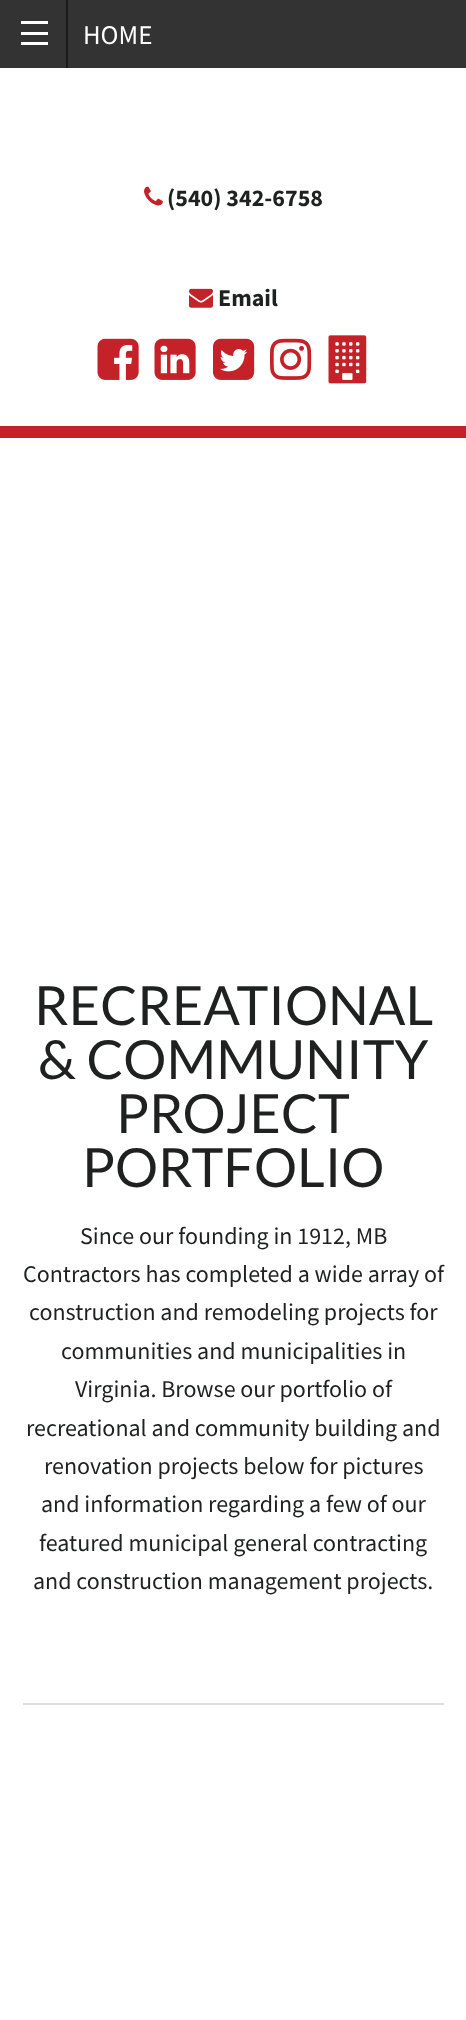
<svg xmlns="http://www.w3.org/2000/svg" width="466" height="2020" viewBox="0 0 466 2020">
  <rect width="100%" height="100%" fill="#fff"/>
  <path d="M0 0h466v68H0z" fill="#333"/>
  <path d="M66 0h2v68H66z" fill="#1a1a1a"/>
  <path d="M21 42h27v3H21z" fill="#fff"/>
  <path d="M21 32h27v3H21z" fill="#fff"/>
  <path d="M21 21h27v3H21z" fill="#fff"/>
  <image x="144" y="186" width="19" height="20" href="img/1.png"/>
  <image x="189" y="288" width="24" height="20" href="img/2.png"/>
  <image x="97" y="338" width="42" height="42" href="img/3.png"/>
  <image x="154" y="338" width="42" height="42" href="img/4.png"/>
  <image x="213" y="338" width="42" height="42" href="img/5.png"/>
  <image x="270" y="338" width="42" height="42" href="img/6.png"/>
  <image x="328" y="335" width="39" height="49" href="img/7.png"/>
  <path d="M0 426h466v12H0z" fill="#c42129"/>
  <path d="M23 1703h421v2H23z" fill="#ddd"/>
  <text x="83" y="44" font-family="Source Sans Pro" font-size="27" fill="#fff">HOME</text>
  <g font-family="Source Sans Pro" font-size="24" font-weight="bold" fill="#1f2120">
    <text x="167" y="206">(540) 342-6758</text>
    <text x="218" y="306">Email</text>
  </g>
  <g font-family="Lato" font-size="54" fill="#1f2120">
    <text x="34" y="1025">RECREATIONAL</text>
    <text x="38" y="1079">&amp; COMMUNITY</text>
    <text x="116" y="1133">PROJECT</text>
    <text x="82" y="1187">PORTFOLIO</text>
  </g>
  <g font-family="Source Sans Pro" font-size="24" fill="#1f2120">
    <text x="80" y="1244">Since our founding in 1912, MB</text>
    <text x="23" y="1282">Contractors has completed a wide array of</text>
    <text x="29" y="1320">construction and remodeling projects for</text>
    <text x="61" y="1359">communities and municipalities in</text>
    <text x="75" y="1397">Virginia. Browse our portfolio of</text>
    <text x="26" y="1436">recreational and community building and</text>
    <text x="44" y="1474">renovation projects below for pictures</text>
    <text x="41" y="1512">and information regarding a few of our</text>
    <text x="39" y="1551">featured municipal general contracting</text>
    <text x="33" y="1589">and construction management projects.</text>
  </g>
</svg>
